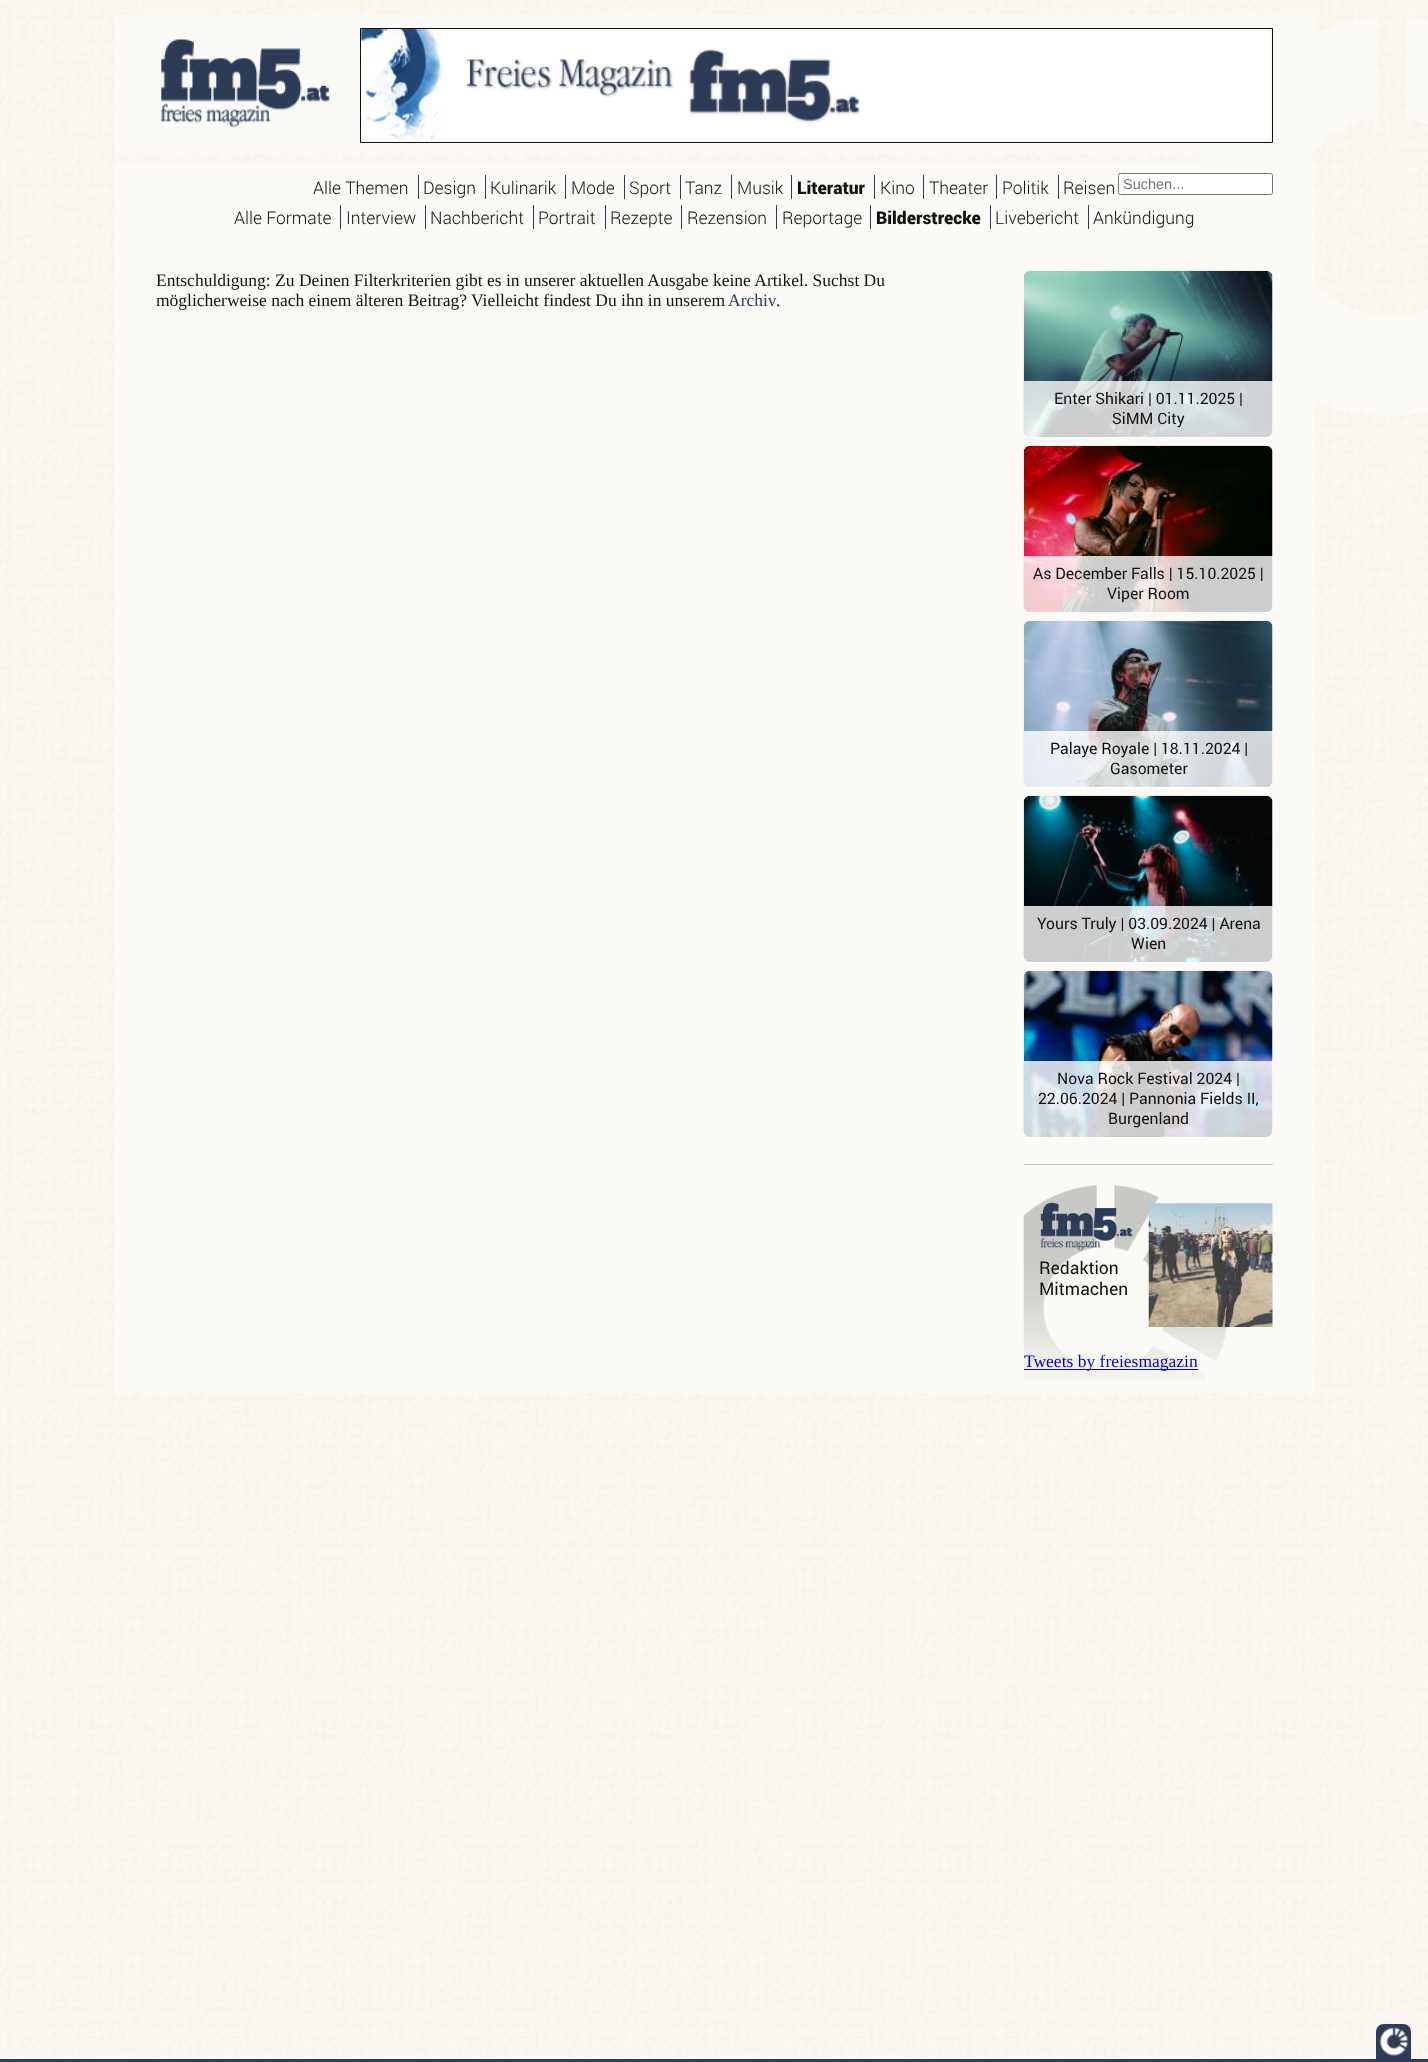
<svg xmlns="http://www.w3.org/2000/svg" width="1428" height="2062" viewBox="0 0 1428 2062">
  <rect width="100%" height="100%" fill="#fff"/>
  <image x="0" y="0" width="1428" height="2059" href="img/1.png"/>
  <image x="1198" y="19" width="230" height="397" href="img/12.png"/>
  <path d="M115 15h1200v138H115z" fill="#fbfaf6"/>
  <image x="160" y="39" width="171" height="89" href="img/2.png"/>
  <image x="361" y="29" width="908" height="112" href="img/3.png"/>
  <path d="M360.5 28.5h912v114H360.5z" fill="none" stroke="#111"/>
  <path d="M115 163h1200v1230H115z" fill="#fbfaf6"/>
  <rect x="1118.5" y="173.5" width="154" height="21" rx="2" fill="#fff" stroke="#767676"/>
  <path d="M418 175h1v24H418z" fill="#2d3c57"/>
  <path d="M485 175h1v24H485z" fill="#2d3c57"/>
  <path d="M565 175h1v24H565z" fill="#2d3c57"/>
  <path d="M624 175h1v24H624z" fill="#2d3c57"/>
  <path d="M680 175h1v24H680z" fill="#2d3c57"/>
  <path d="M731 175h1v24H731z" fill="#2d3c57"/>
  <path d="M791 175h1v24H791z" fill="#2d3c57"/>
  <path d="M874 175h1v24H874z" fill="#2d3c57"/>
  <path d="M923 175h1v24H923z" fill="#2d3c57"/>
  <path d="M996 175h1v24H996z" fill="#2d3c57"/>
  <path d="M1058 175h1v24H1058z" fill="#2d3c57"/>
  <path d="M340 205h1v24H340z" fill="#2d3c57"/>
  <path d="M425 205h1v24H425z" fill="#2d3c57"/>
  <path d="M533 205h1v24H533z" fill="#2d3c57"/>
  <path d="M605 205h1v24H605z" fill="#2d3c57"/>
  <path d="M681 205h1v24H681z" fill="#2d3c57"/>
  <path d="M776 205h1v24H776z" fill="#2d3c57"/>
  <path d="M870 205h1v24H870z" fill="#2d3c57"/>
  <path d="M990 205h1v24H990z" fill="#2d3c57"/>
  <path d="M1088 205h1v24H1088z" fill="#2d3c57"/>
  <path d="M1024 1164h249v1H1024z" fill="#c4c4c4"/>
  <image x="1023" y="270" width="250" height="167" href="img/4.png"/>
  <path d="M1024 381H1273V432C1273 435.5 1270.5 438 1267 438H1030C1026.5 438 1024 435.5 1024 432Z" fill="#ffffffcc"/>
  <image x="1023" y="445" width="250" height="167" href="img/5.png"/>
  <path d="M1024 556H1273V607C1273 610.5 1270.5 613 1267 613H1030C1026.5 613 1024 610.5 1024 607Z" fill="#ffffffcc"/>
  <image x="1023" y="620" width="250" height="167" href="img/6.png"/>
  <path d="M1024 731H1273V782C1273 785.5 1270.5 788 1267 788H1030C1026.5 788 1024 785.5 1024 782Z" fill="#ffffffcc"/>
  <image x="1023" y="795" width="250" height="167" href="img/7.png"/>
  <path d="M1024 906H1273V957C1273 960.5 1270.5 963 1267 963H1030C1026.5 963 1024 960.5 1024 957Z" fill="#ffffffcc"/>
  <image x="1023" y="970" width="250" height="167" href="img/8.png"/>
  <path d="M1024 1061H1273V1132C1273 1135.5 1270.5 1138 1267 1138H1030C1026.5 1138 1024 1135.5 1024 1132Z" fill="#ffffffcc"/>
  <path d="M1024 1369h174v1H1024z" fill="#00e"/>
  <path d="M0 2059h1428v3H0z" fill="#2d3c57"/>
  <path d="M1384 2024H1403C1407.5 2024 1411 2027.5 1411 2032V2059H1376V2032C1376 2027.5 1379.5 2024 1384 2024Z" fill="#2d3c57"/>
  <image x="1379" y="2027" width="30" height="29" href="img/11.png"/>
  <text x="1123" y="189" font-family="Liberation Sans" font-size="14.5" fill="#757575">Suchen...</text>
  <g font-family="Roboto" font-size="17.5" font-weight="300" fill="#111">
    <text x="313" y="194">Alle Themen</text>
    <text x="423" y="194">Design</text>
    <text x="490" y="194">Kulinarik</text>
    <text x="571" y="194">Mode</text>
    <text x="629" y="194">Sport</text>
    <text x="685" y="194">Tanz</text>
    <text x="737" y="194">Musik</text>
  </g>
  <text x="797" y="194" font-family="Roboto" font-size="17.5" font-weight="900" fill="#111">Literatur</text>
  <g font-family="Roboto" font-size="17.5" font-weight="300" fill="#111">
    <text x="880" y="194">Kino</text>
    <text x="929" y="194">Theater</text>
    <text x="1002" y="194">Politik</text>
    <text x="1063" y="194">Reisen</text>
    <text x="234" y="224">Alle Formate</text>
    <text x="346" y="224">Interview</text>
    <text x="430" y="224">Nachbericht</text>
    <text x="538" y="224">Portrait</text>
    <text x="610" y="224">Rezepte</text>
    <text x="687" y="224">Rezension</text>
    <text x="782" y="224">Reportage</text>
  </g>
  <text x="876" y="224" font-family="Roboto" font-size="17.5" font-weight="900" fill="#111">Bilderstrecke</text>
  <g font-family="Roboto" font-size="17.5" font-weight="300" fill="#111">
    <text x="995" y="224">Livebericht</text>
    <text x="1093" y="224">Ankündigung</text>
  </g>
  <g font-family="Liberation Serif" font-size="17.5" fill="#111">
    <text x="156" y="286">Entschuldigung: Zu Deinen Filterkriterien gibt es in unserer aktuellen Ausgabe keine Artikel. Suchst Du</text>
    <text x="156" y="306">möglicherweise nach einem älteren Beitrag? Vielleicht findest Du ihn in unserem</text>
  </g>
  <text x="728" y="306" font-family="Liberation Serif" font-size="17.5" fill="#2d3c57">Archiv</text>
  <text x="776" y="306" font-family="Liberation Serif" font-size="17.5" fill="#111">.</text>
  <g font-family="Roboto" font-size="15.75" fill="#111">
    <text x="1054" y="404">Enter Shikari | 01.11.2025 |</text>
    <text x="1112" y="424">SiMM City</text>
    <text x="1033" y="579">As December Falls | 15.10.2025 |</text>
    <text x="1107" y="599">Viper Room</text>
    <text x="1050" y="754">Palaye Royale | 18.11.2024 |</text>
    <text x="1110" y="774">Gasometer</text>
    <text x="1037" y="929">Yours Truly | 03.09.2024 | Arena</text>
    <text x="1131" y="949">Wien</text>
    <text x="1057" y="1084">Nova Rock Festival 2024 |</text>
    <text x="1038" y="1104">22.06.2024 | Pannonia Fields II,</text>
    <text x="1108" y="1124">Burgenland</text>
  </g>
  <text x="1024" y="1367" font-family="Liberation Serif" font-size="17.5" fill="#00e">Tweets by freiesmagazin</text>
  <image x="1023" y="1185" width="204" height="196" href="img/9.png"/>
  <image x="1148" y="1203" width="125" height="124" href="img/10.png"/>
  <g font-family="Roboto" font-size="17.5" fill="#111">
    <text x="1039" y="1295">Mitmachen</text>
    <text x="1039" y="1274">Redaktion</text>
  </g>
</svg>
